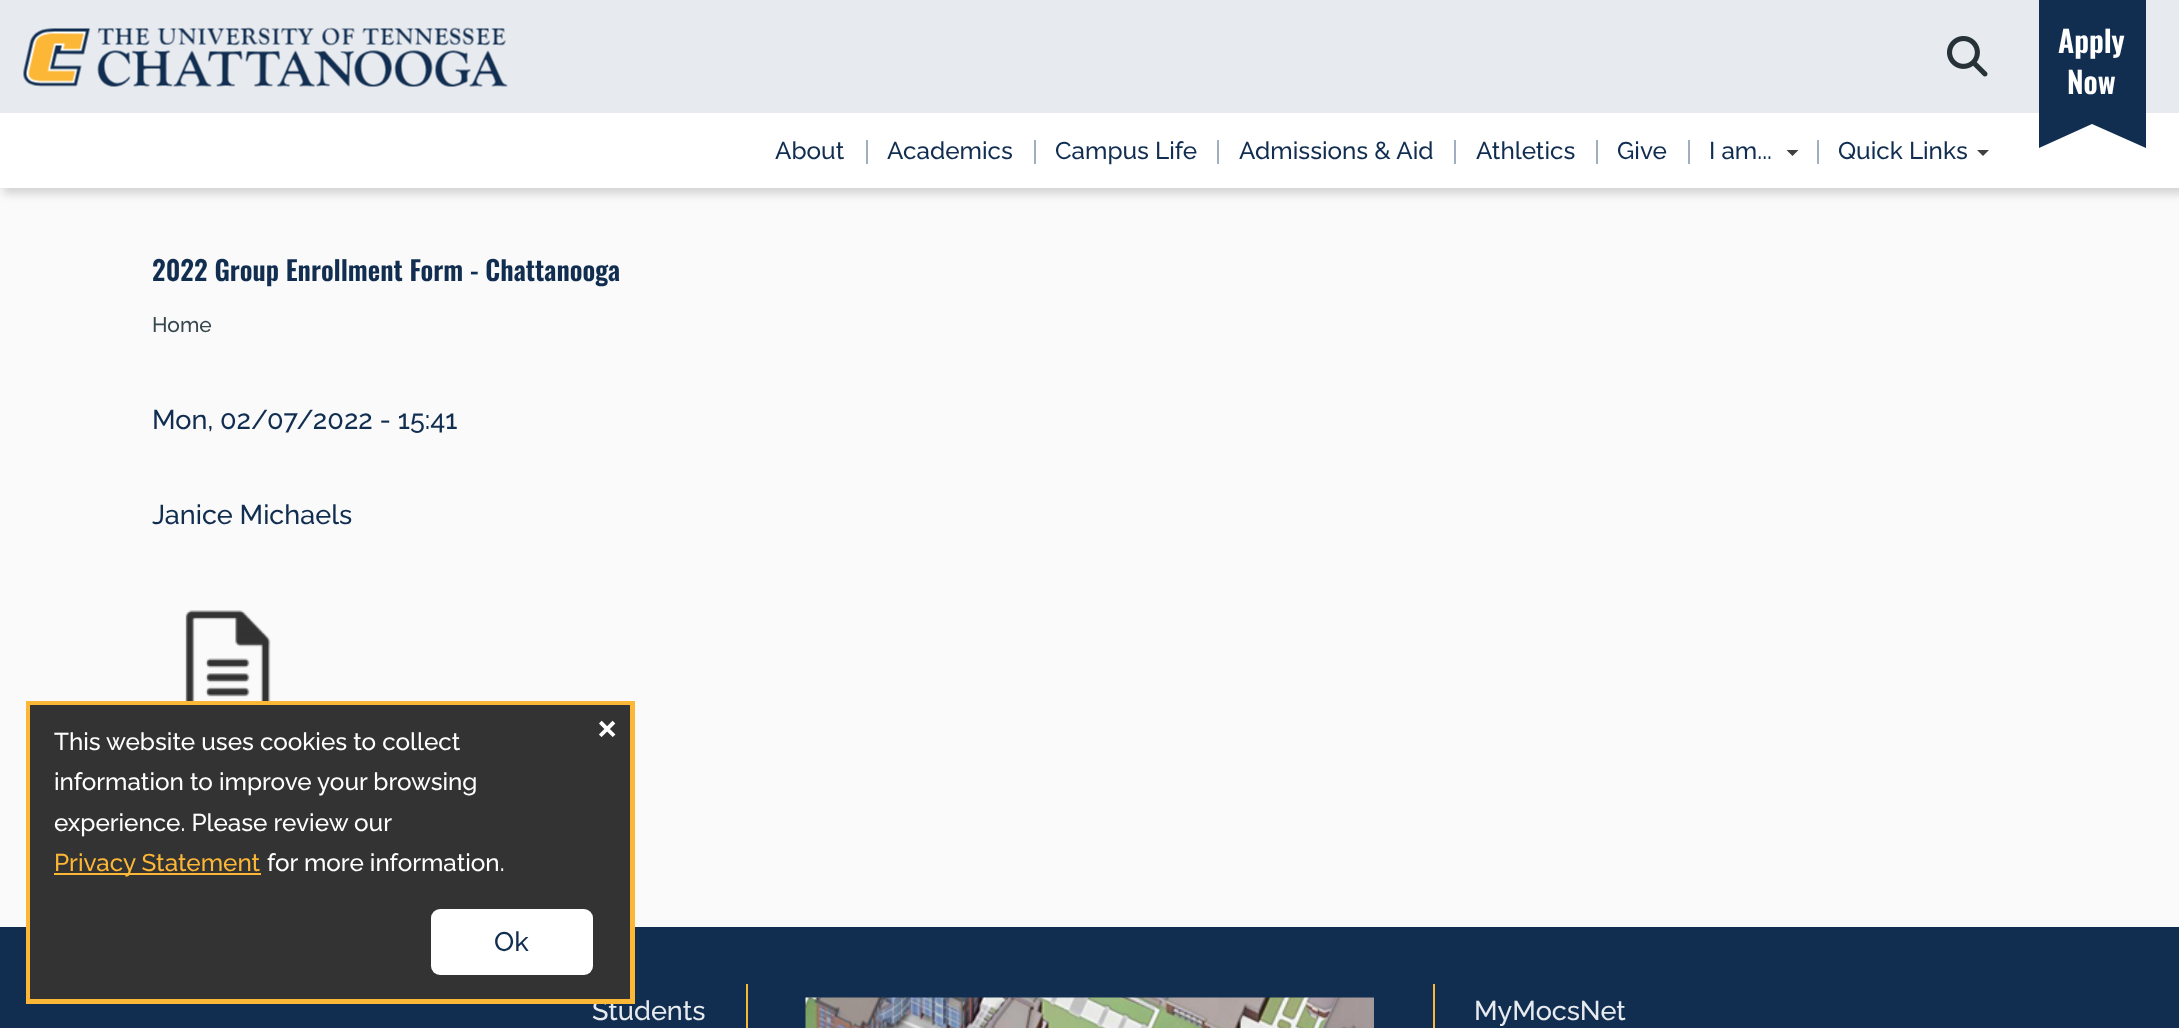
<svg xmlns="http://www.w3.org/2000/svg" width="2179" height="1028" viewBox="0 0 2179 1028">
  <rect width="100%" height="100%" fill="#fafafa"/>
  <path d="M3 3h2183v191H3z" fill="#00000026" filter="blur(4px)"/>
  <path d="M0 0h2179v113H0z" fill="#e7eaee"/>
  <image x="23" y="27" width="485" height="60" href="img/1.png"/>
  <image x="1947" y="36" width="41" height="41" href="img/2.png"/>
  <path d="M0 113h2179v75H0z" fill="#fff"/>
  <path d="M2039-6H2146V148L2092 124L2039 148Z" fill="#112e51"/>
  <path d="M866 140h2v24H866z" fill="#a0aec0"/>
  <path d="M1034 140h2v24H1034z" fill="#a0aec0"/>
  <path d="M1217 140h2v24H1217z" fill="#a0aec0"/>
  <path d="M1454 140h2v24H1454z" fill="#a0aec0"/>
  <path d="M1596 140h2v24H1596z" fill="#a0aec0"/>
  <path d="M1688 140h2v24H1688z" fill="#a0aec0"/>
  <path d="M1817 140h2v24H1817z" fill="#a0aec0"/>
  <path d="M1786.5 150H1798.5L1792.5 156Z" fill="#404040"/>
  <path d="M1977 150H1989L1983 156Z" fill="#404040"/>
  <image x="185" y="610" width="86" height="91" href="img/3.png"/>
  <path d="M0 927h2179v101H0z" fill="#112e51"/>
  <path d="M746 984h2v44H746z" fill="#fdb736"/>
  <image x="805" y="997" width="569" height="31" href="img/4.png"/>
  <path d="M1433 984h2v44H1433z" fill="#fdb736"/>
  <g font-family="Oswald" font-size="30" font-weight="600" fill="#fff">
    <text x="2058" y="53">Apply</text>
    <text x="2067" y="94">Now</text>
  </g>
  <g font-family="Raleway" font-size="24.25" font-weight="500" fill="#112e51">
    <text x="775" y="159">About</text>
    <text x="887" y="159">Academics</text>
    <text x="1055" y="159">Campus Life</text>
    <text x="1239" y="159">Admissions &amp; Aid</text>
    <text x="1476" y="159">Athletics</text>
    <text x="1617" y="159">Give</text>
    <text x="1709" y="159">I am...</text>
    <text x="1838" y="159">Quick Links</text>
  </g>
  <text x="152" y="281" font-family="Oswald" font-size="27" font-weight="600" fill="#112e51">2022 Group Enrollment Form - Chattanooga</text>
  <text x="152" y="332" font-family="Raleway" font-size="21" font-weight="500" fill="#37474f">Home</text>
  <g font-family="Raleway" font-size="27" font-weight="500" fill="#112e51">
    <text x="152" y="429">Mon, 02/07/2022 - 15:41</text>
    <text x="152" y="524">Janice Michaels</text>
  </g>
  <g font-family="Raleway" font-size="27" font-weight="500" fill="#e7eaee">
    <text x="592" y="1020">Students</text>
    <text x="1474" y="1020">MyMocsNet</text>
  </g>
  <path d="M28.5 703.5h604v298H28.5z" fill="none" stroke="#fdb736" stroke-width="5"/>
  <path d="M30 705h600v294H30z" fill="#333"/>
  <text x="596" y="742" font-family="Raleway" font-size="48" font-weight="500" fill="#fff">×</text>
  <g font-family="Raleway" font-size="24.25" font-weight="500" fill="#fff">
    <text x="54" y="750">This website uses cookies to collect</text>
    <text x="54" y="790">information to improve your browsing</text>
    <text x="54" y="831">experience. Please review our</text>
  </g>
  <path d="M54 873h207v2H54z" fill="#fdb736"/>
  <text x="54" y="871" font-family="Raleway" font-size="24.25" font-weight="500" fill="#fdb736">Privacy Statement</text>
  <text x="267" y="871" font-family="Raleway" font-size="24.25" font-weight="500" fill="#fff">for more information.</text>
  <rect x="431" y="909" width="162" height="66" rx="9" fill="#fff"/>
  <text x="494" y="951" font-family="Raleway" font-size="27" font-weight="500" fill="#112e51">Ok</text>
</svg>
